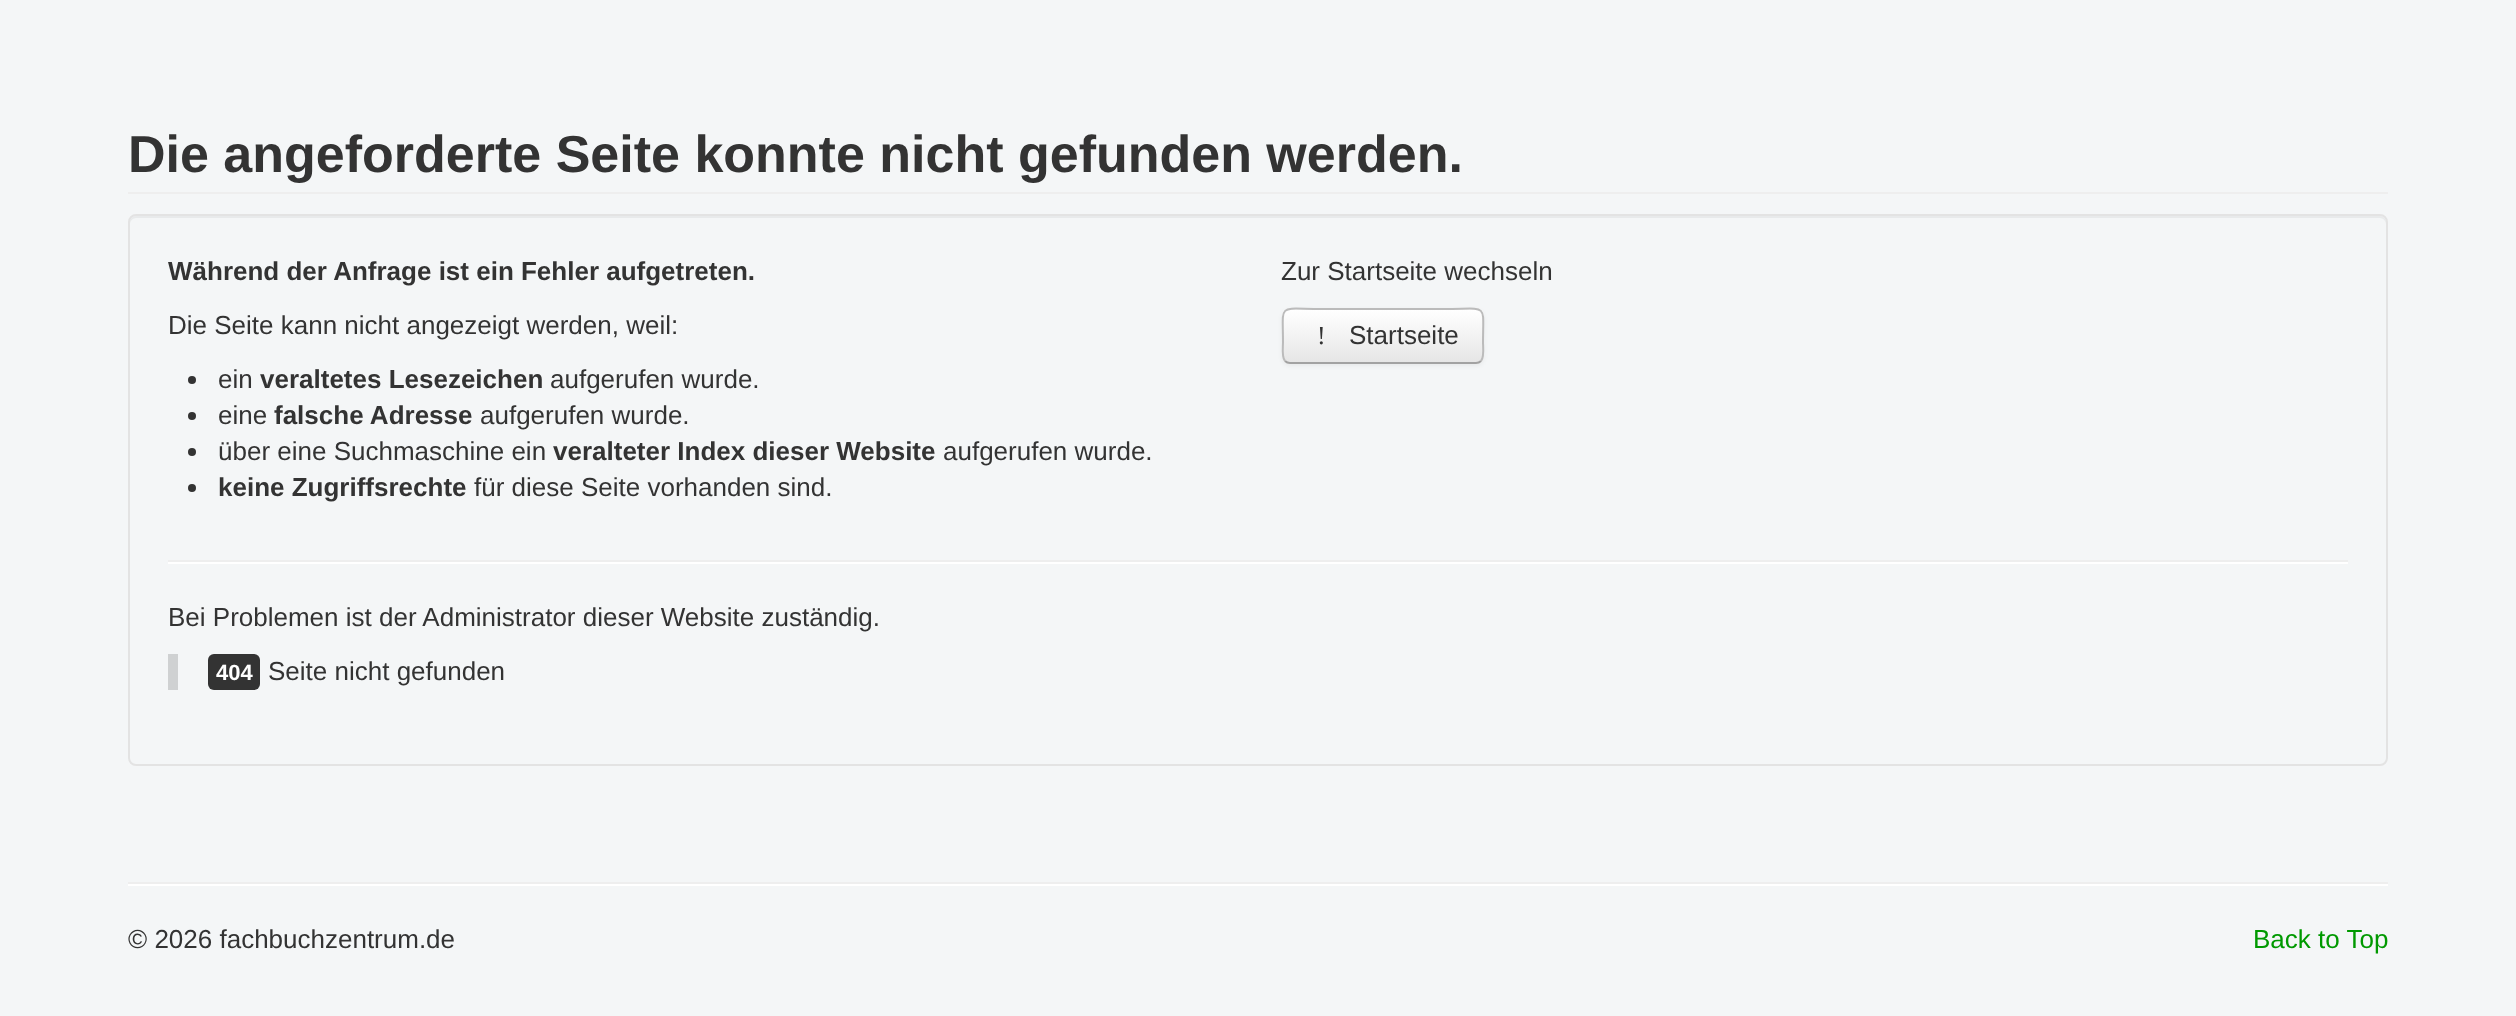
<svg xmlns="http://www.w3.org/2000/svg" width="2516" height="1016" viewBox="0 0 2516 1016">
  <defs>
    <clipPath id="clip1"><rect x="1282" y="308" width="202" height="56" rx="8"/></clipPath>
    <linearGradient id="g1" gradientUnits="userSpaceOnUse" x1="1383" y1="310" x2="1383" y2="362"><stop offset="0" stop-color="#fff"/><stop offset="1" stop-color="#e6e6e6"/></linearGradient>
  </defs>
  <rect width="100%" height="100%" fill="#f4f6f7"/>
  <path d="M128 192h2260v2H128z" fill="#eee"/>
  <path d="M136 218H2380C2383 218 2386 221 2386 224V222C2386 219 2383 216 2380 216H136C133 216 130 219 130 222V224C130 221 133 218 136 218Z" fill="#e8eaeb"/>
  <rect x="129" y="215" width="2258" height="550" rx="7" fill="none" stroke="#e3e3e3" stroke-width="2"/>
  <circle cx="192" cy="380" r="4" fill="#333"/>
  <circle cx="192" cy="416" r="4" fill="#333"/>
  <circle cx="192" cy="452" r="4" fill="#333"/>
  <circle cx="192" cy="488" r="4" fill="#333"/>
  <rect x="1282" y="310" width="202" height="56" rx="8" fill="#0000000d" filter="blur(2px)"/>
  <rect x="1282" y="308" width="202" height="56" rx="8" fill="#f5f5f5"/>
  <g clip-path="url(#clip1)">
    <path d="M1282 310h202v52H1282z" fill="url(#g1)"/>
  </g>
  <path d="M1481 361C1479.5 362.5 1478 363 1476 363H1290C1288 363 1286.5 362.5 1285 361" fill="none" stroke="#a2a2a2" stroke-width="2"/>
  <path d="M1285 361C1281.5 357 1283 347 1283 342.5C1283 302 1277 309 1321 309H1445C1489 309 1483 302 1483 342.5C1483 347 1484.5 357 1481 361" fill="none" stroke="#bbb" stroke-width="2"/>
  <path d="M168 560h2180v2H168z" fill="#eee"/>
  <path d="M168 562h2180v2H168z" fill="#fff"/>
  <path d="M168 654h10v36H168z" fill="#cfd1d2"/>
  <rect x="208" y="654" width="52" height="36" rx="6" fill="#333"/>
  <path d="M128 882h2260v2H128z" fill="#eee"/>
  <path d="M128 884h2260v2H128z" fill="#fff"/>
  <text x="128" y="172" font-family="Liberation Sans" font-size="52" font-weight="bold" fill="#333">Die angeforderte Seite konnte nicht gefunden werden.</text>
  <text x="168" y="280" font-family="Liberation Sans" font-size="26" font-weight="bold" fill="#333">Während der Anfrage ist ein Fehler aufgetreten.</text>
  <g font-family="Liberation Sans" font-size="26" fill="#333">
    <text x="168" y="334">Die Seite kann nicht angezeigt werden, weil:</text>
    <text x="218" y="388">ein</text>
  </g>
  <text x="260" y="388" font-family="Liberation Sans" font-size="26" font-weight="bold" fill="#333">veraltetes Lesezeichen</text>
  <g font-family="Liberation Sans" font-size="26" fill="#333">
    <text x="550" y="388">aufgerufen wurde.</text>
    <text x="218" y="424">eine</text>
  </g>
  <text x="274" y="424" font-family="Liberation Sans" font-size="26" font-weight="bold" fill="#333">falsche Adresse</text>
  <g font-family="Liberation Sans" font-size="26" fill="#333">
    <text x="480" y="424">aufgerufen wurde.</text>
    <text x="218" y="460">über eine Suchmaschine ein</text>
  </g>
  <text x="553" y="460" font-family="Liberation Sans" font-size="26" font-weight="bold" fill="#333">veralteter Index dieser Website</text>
  <text x="943" y="460" font-family="Liberation Sans" font-size="26" fill="#333">aufgerufen wurde.</text>
  <text x="218" y="496" font-family="Liberation Sans" font-size="26" font-weight="bold" fill="#333">keine Zugriffsrechte</text>
  <g font-family="Liberation Sans" font-size="26" fill="#333">
    <text x="474" y="496">für diese Seite vorhanden sind.</text>
    <text x="1281" y="280">Zur Startseite wechseln</text>
  </g>
  <text x="1317" y="344" font-family="Liberation Serif" font-size="26" fill="#333">!</text>
  <g font-family="Liberation Sans" font-size="26" fill="#333">
    <text x="1349" y="344">Startseite</text>
    <text x="168" y="626">Bei Problemen ist der Administrator dieser Website zuständig.</text>
  </g>
  <text x="216" y="680" font-family="Liberation Sans" font-size="22" font-weight="bold" fill="#fff">404</text>
  <g font-family="Liberation Sans" font-size="26" fill="#333">
    <text x="268" y="680">Seite nicht gefunden</text>
    <text x="128" y="948">© 2026 fachbuchzentrum.de</text>
  </g>
  <text x="2253" y="948" font-family="Liberation Sans" font-size="26" fill="#090">Back to Top</text>
</svg>
